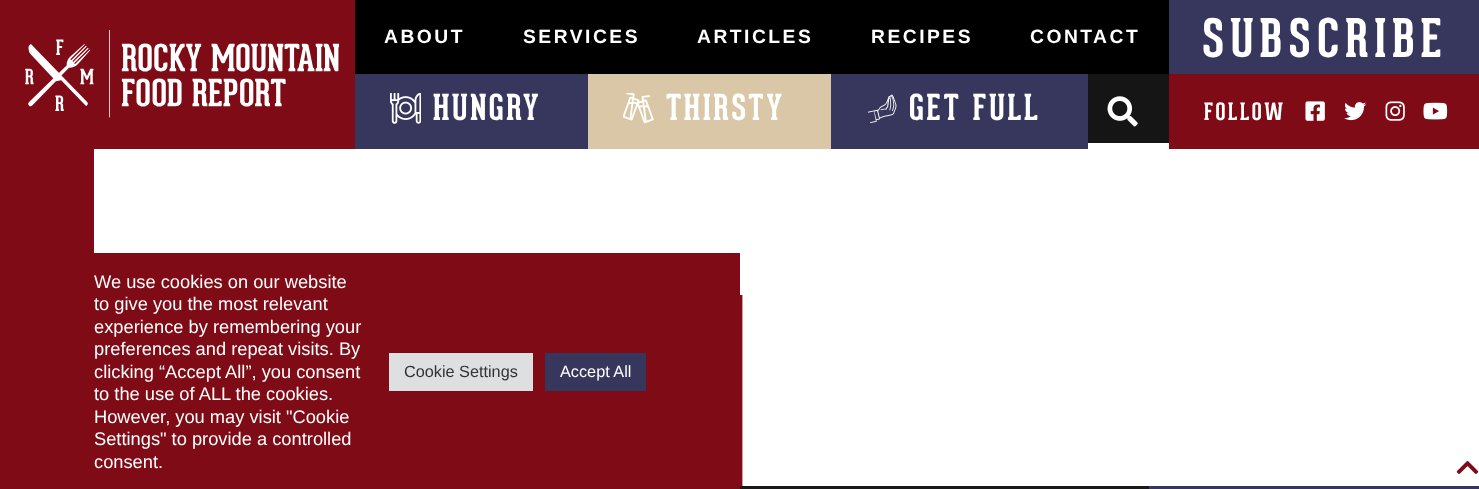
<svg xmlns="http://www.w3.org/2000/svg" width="1479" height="489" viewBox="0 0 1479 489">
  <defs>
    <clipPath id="clip1"><path d="M739 295h4v191H739z"/></clipPath>
  </defs>
  <rect width="100%" height="100%" fill="#fff"/>
  <path d="M0 0h355v149H0z" fill="#7e0b15"/>
  <image x="25" y="30" width="315" height="88" href="img/1.png"/>
  <path d="M355 0h814v74H355z" fill="#000"/>
  <path d="M355 74h233v75H355z" fill="#37375d"/>
  <image x="390" y="93" width="31" height="31" href="img/2.png"/>
  <path d="M588 74h243v75H588z" fill="#d9c7a7"/>
  <image x="623" y="93" width="31" height="31" href="img/3.png"/>
  <path d="M831 74h257v75H831z" fill="#37375d"/>
  <image x="867" y="94" width="30" height="29" href="img/4.png"/>
  <path d="M1088 74h81v69H1088z" fill="#151515"/>
  <image x="1107" y="96" width="31" height="31" href="img/5.png"/>
  <path d="M1169 0h310v74H1169z" fill="#37375d"/>
  <path d="M1169 74h310v75H1169z" fill="#7e0b15"/>
  <image x="1305" y="101" width="20" height="20" href="img/6.png"/>
  <image x="1344" y="102" width="23" height="19" href="img/7.png"/>
  <image x="1385" y="101" width="20" height="20" href="img/8.png"/>
  <image x="1423" y="102" width="25" height="18" href="img/9.png"/>
  <path d="M0 149h94v104H0z" fill="#7e0b15"/>
  <g clip-path="url(#clip1)">
    <path d="M740.5 209V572.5" fill="none" stroke="#7e0b15" stroke-width="3.8"/>
  </g>
  <path d="M740 486h409v3H740z" fill="#1a1919"/>
  <path d="M1149 486h330v3H1149z" fill="#37375d"/>
  <path d="M0 253h740v236H0z" fill="#7e0b15"/>
  <path d="M389 353h144v38H389z" fill="#dedfe0"/>
  <path d="M545 353h101v38H545z" fill="#37375d"/>
  <image x="1456" y="461" width="23" height="13" href="img/10.png"/>
  <g font-family="Liberation Sans" font-size="19.25" font-weight="bold" letter-spacing="2.5" fill="#fff">
    <text x="384" y="43">ABOUT</text>
    <text x="523" y="43">SERVICES</text>
    <text x="697" y="43">ARTICLES</text>
    <text x="871" y="43">RECIPES</text>
    <text x="1030" y="43">CONTACT</text>
  </g>
  <g font-family="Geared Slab" font-size="35" font-weight="bold" letter-spacing="2.5" fill="#fff">
    <text x="433" y="120">HUNGRY</text>
    <text x="666" y="120">THIRSTY</text>
    <text x="909" y="120">GET FULL</text>
  </g>
  <text x="1202" y="57" font-family="Geared Slab" font-size="52" font-weight="bold" letter-spacing="6.25" fill="#fff">SUBSCRIBE</text>
  <text x="1204" y="120" font-family="Geared Slab" font-size="23.5" font-weight="bold" letter-spacing="2.5" fill="#fff">FOLLOW</text>
  <g font-family="Liberation Sans" font-size="18.3" fill="#fff">
    <text x="94" y="288">We use cookies on our website</text>
    <text x="94" y="310">to give you the most relevant</text>
    <text x="94" y="333">experience by remembering your</text>
    <text x="94" y="355">preferences and repeat visits. By</text>
    <text x="94" y="378">clicking “Accept All”, you consent</text>
    <text x="94" y="400">to the use of ALL the cookies.</text>
    <text x="94" y="423">However, you may visit "Cookie</text>
    <text x="94" y="445">Settings" to provide a controlled</text>
    <text x="94" y="468">consent.</text>
  </g>
  <text x="404" y="377" font-family="Liberation Sans" font-size="16.25" fill="#333">Cookie Settings</text>
  <text x="560" y="377" font-family="Liberation Sans" font-size="16.25" fill="#fff">Accept All</text>
</svg>
